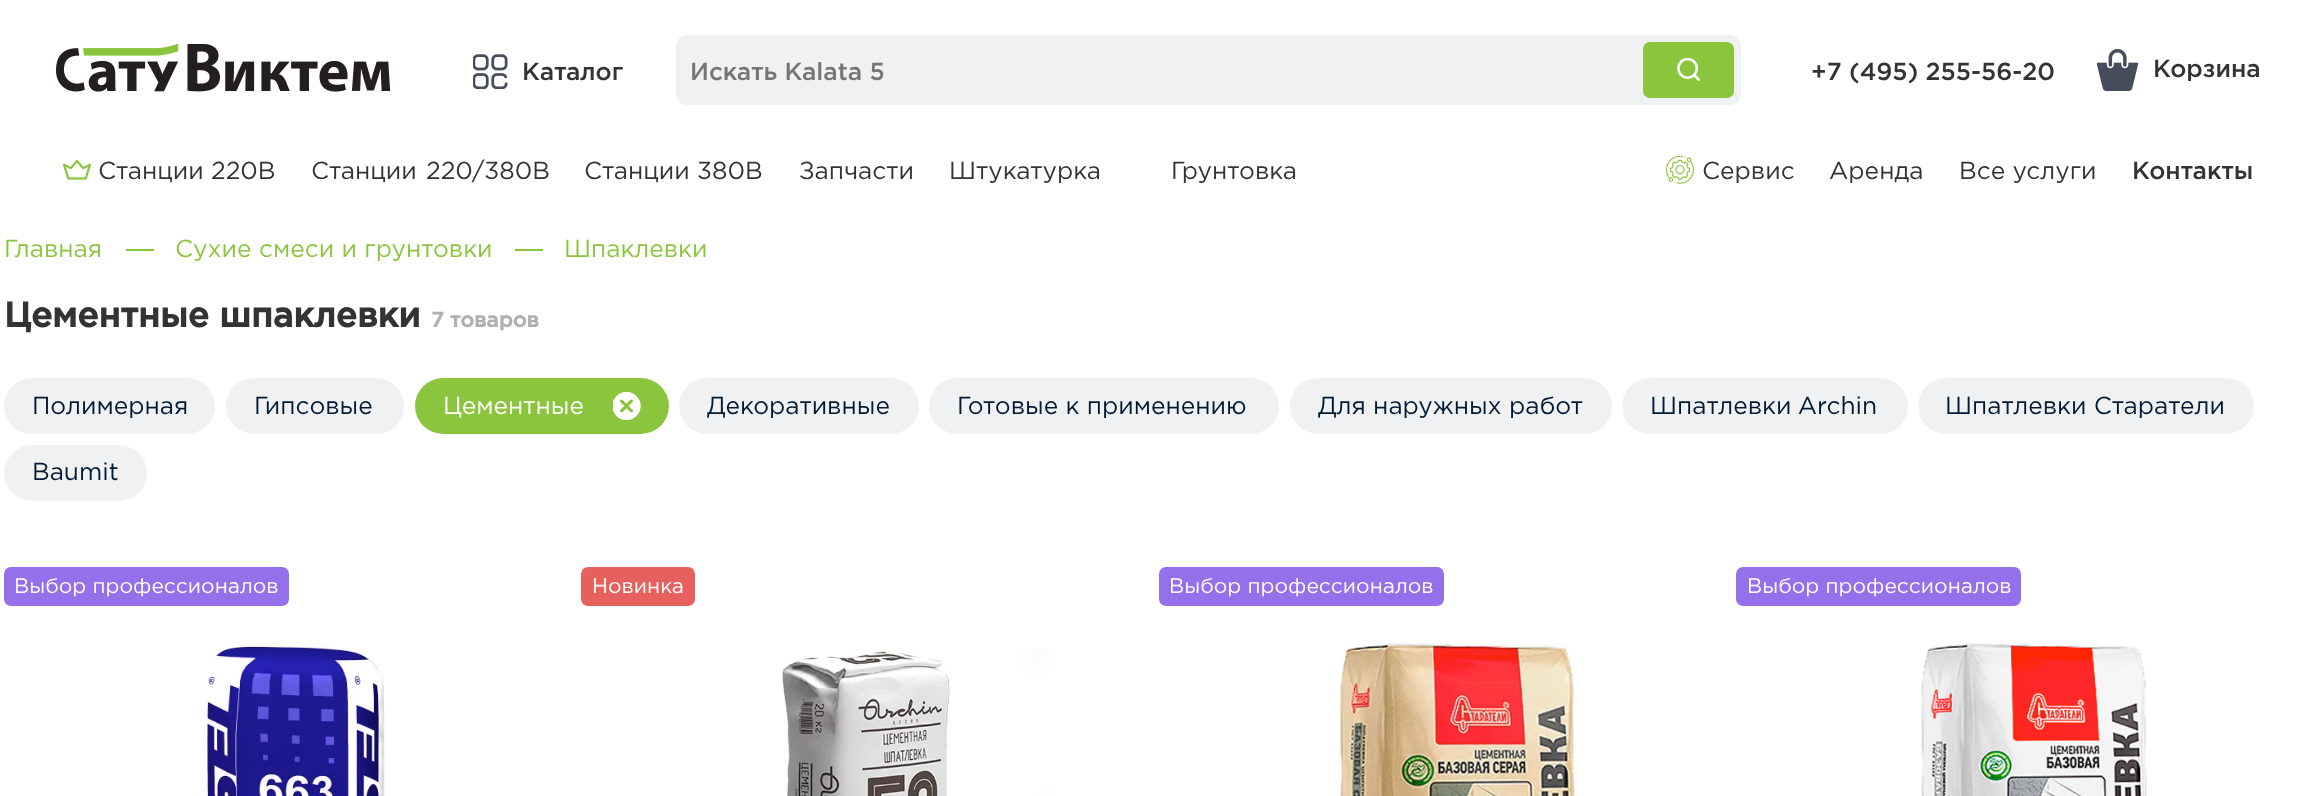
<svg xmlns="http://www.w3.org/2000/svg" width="2316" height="796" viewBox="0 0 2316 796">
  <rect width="100%" height="100%" fill="#fff"/>
  <image x="56" y="44" width="335" height="48" href="img/1.png"/>
  <image x="473" y="54" width="35" height="35" href="img/2.png"/>
  <rect x="676" y="35" width="1065" height="70" rx="11" fill="#f0f1f2"/>
  <rect x="1643" y="42" width="91" height="56" rx="7" fill="#8bc53d"/>
  <image x="1677" y="58" width="23" height="23" href="img/3.png"/>
  <image x="2097" y="49" width="42" height="42" href="img/4.png"/>
  <image x="63" y="160" width="28" height="20" href="img/5.png"/>
  <image x="1666" y="156" width="28" height="28" href="img/6.png"/>
  <path d="M126 249h28v2H126z" fill="#8bc53d"/>
  <path d="M515 249h28v2H515z" fill="#8bc53d"/>
  <rect x="4" y="378" width="211" height="56" rx="28" fill="#f0f1f2"/>
  <rect x="226" y="378" width="178" height="56" rx="28" fill="#f0f1f2"/>
  <rect x="415" y="378" width="254" height="56" rx="28" fill="#8bc53d"/>
  <image x="613" y="392" width="28" height="28" href="img/7.png"/>
  <rect x="679" y="378" width="240" height="56" rx="28" fill="#f0f1f2"/>
  <rect x="929" y="378" width="350" height="56" rx="28" fill="#f0f1f2"/>
  <rect x="1290" y="378" width="322" height="56" rx="28" fill="#f0f1f2"/>
  <rect x="1622" y="378" width="286" height="56" rx="28" fill="#f0f1f2"/>
  <rect x="1918" y="378" width="336" height="56" rx="28" fill="#f0f1f2"/>
  <rect x="4" y="445" width="143" height="56" rx="28" fill="#f0f1f2"/>
  <rect x="4" y="567" width="285" height="39" rx="7" fill="#966feb"/>
  <image x="207" y="646" width="178" height="150" href="img/8.png"/>
  <rect x="581" y="567" width="114" height="39" rx="7" fill="#e6615e"/>
  <image x="782" y="648" width="273" height="148" href="img/9.png"/>
  <rect x="1159" y="567" width="285" height="39" rx="7" fill="#966feb"/>
  <image x="1338" y="643" width="239" height="153" href="img/10.png"/>
  <rect x="1736" y="567" width="285" height="39" rx="7" fill="#966feb"/>
  <image x="1921" y="640" width="226" height="156" href="img/11.png"/>
  <text x="522" y="80" font-family="Gotham" font-size="24.5" font-weight="500" fill="#333">Каталог</text>
  <text x="690" y="80" font-family="Gotham" font-size="24.5" font-weight="500" fill="#757575">Искать Kalata 5</text>
  <g font-family="Gotham" font-size="24.5" font-weight="500" fill="#333">
    <text x="1811" y="80">+7 (495) 255-56-20</text>
    <text x="2153" y="77">Корзина</text>
  </g>
  <g font-family="Gotham" font-size="24.5" fill="#333">
    <text x="98" y="179">Cтанции 220В</text>
    <text x="311" y="179" word-spacing="2">Cтанции 220/380В</text>
    <text x="584" y="179">Cтанции 380В</text>
    <text x="799" y="179">Запчасти</text>
    <text x="949" y="179">Штукатурка</text>
    <text x="1171" y="179">Грунтовка</text>
    <text x="1702" y="179">Сервис</text>
    <text x="1829" y="179">Аренда</text>
    <text x="1959" y="179">Все услуги</text>
  </g>
  <text x="2132" y="179" font-family="Gotham" font-size="24.5" font-weight="500" fill="#333">Контакты</text>
  <g font-family="Gotham" font-size="24.5" fill="#8bc53d">
    <text x="4" y="257">Главная</text>
    <text x="175" y="257">Сухие смеси и грунтовки</text>
    <text x="564" y="257">Шпаклевки</text>
  </g>
  <text x="4" y="327" font-family="Gotham" font-size="35" font-weight="bold" fill="#333">Цементные шпаклевки</text>
  <text x="431" y="327" font-family="Gotham" font-size="21" font-weight="bold" fill="#b0b0b0">7 товаров</text>
  <g font-family="Gotham" font-size="24.5" fill="#001a34">
    <text x="32" y="414">Полимерная</text>
    <text x="254" y="414">Гипсовые</text>
  </g>
  <text x="443" y="414" font-family="Gotham" font-size="24.5" fill="#fff">Цементные</text>
  <g font-family="Gotham" font-size="24.5" fill="#001a34">
    <text x="707" y="414">Декоративные</text>
    <text x="957" y="414">Готовые к применению</text>
    <text x="1318" y="414">Для наружных работ</text>
    <text x="1650" y="414" word-spacing="-1">Шпатлевки Archin</text>
    <text x="1945" y="414">Шпатлевки Старатели</text>
    <text x="32" y="480">Baumit</text>
  </g>
  <g font-family="Gotham" font-size="21" fill="#fff">
    <text x="14" y="593">Выбор профессионалов</text>
    <text x="592" y="593">Новинка</text>
    <text x="1169" y="593">Выбор профессионалов</text>
    <text x="1747" y="593">Выбор профессионалов</text>
  </g>
</svg>
